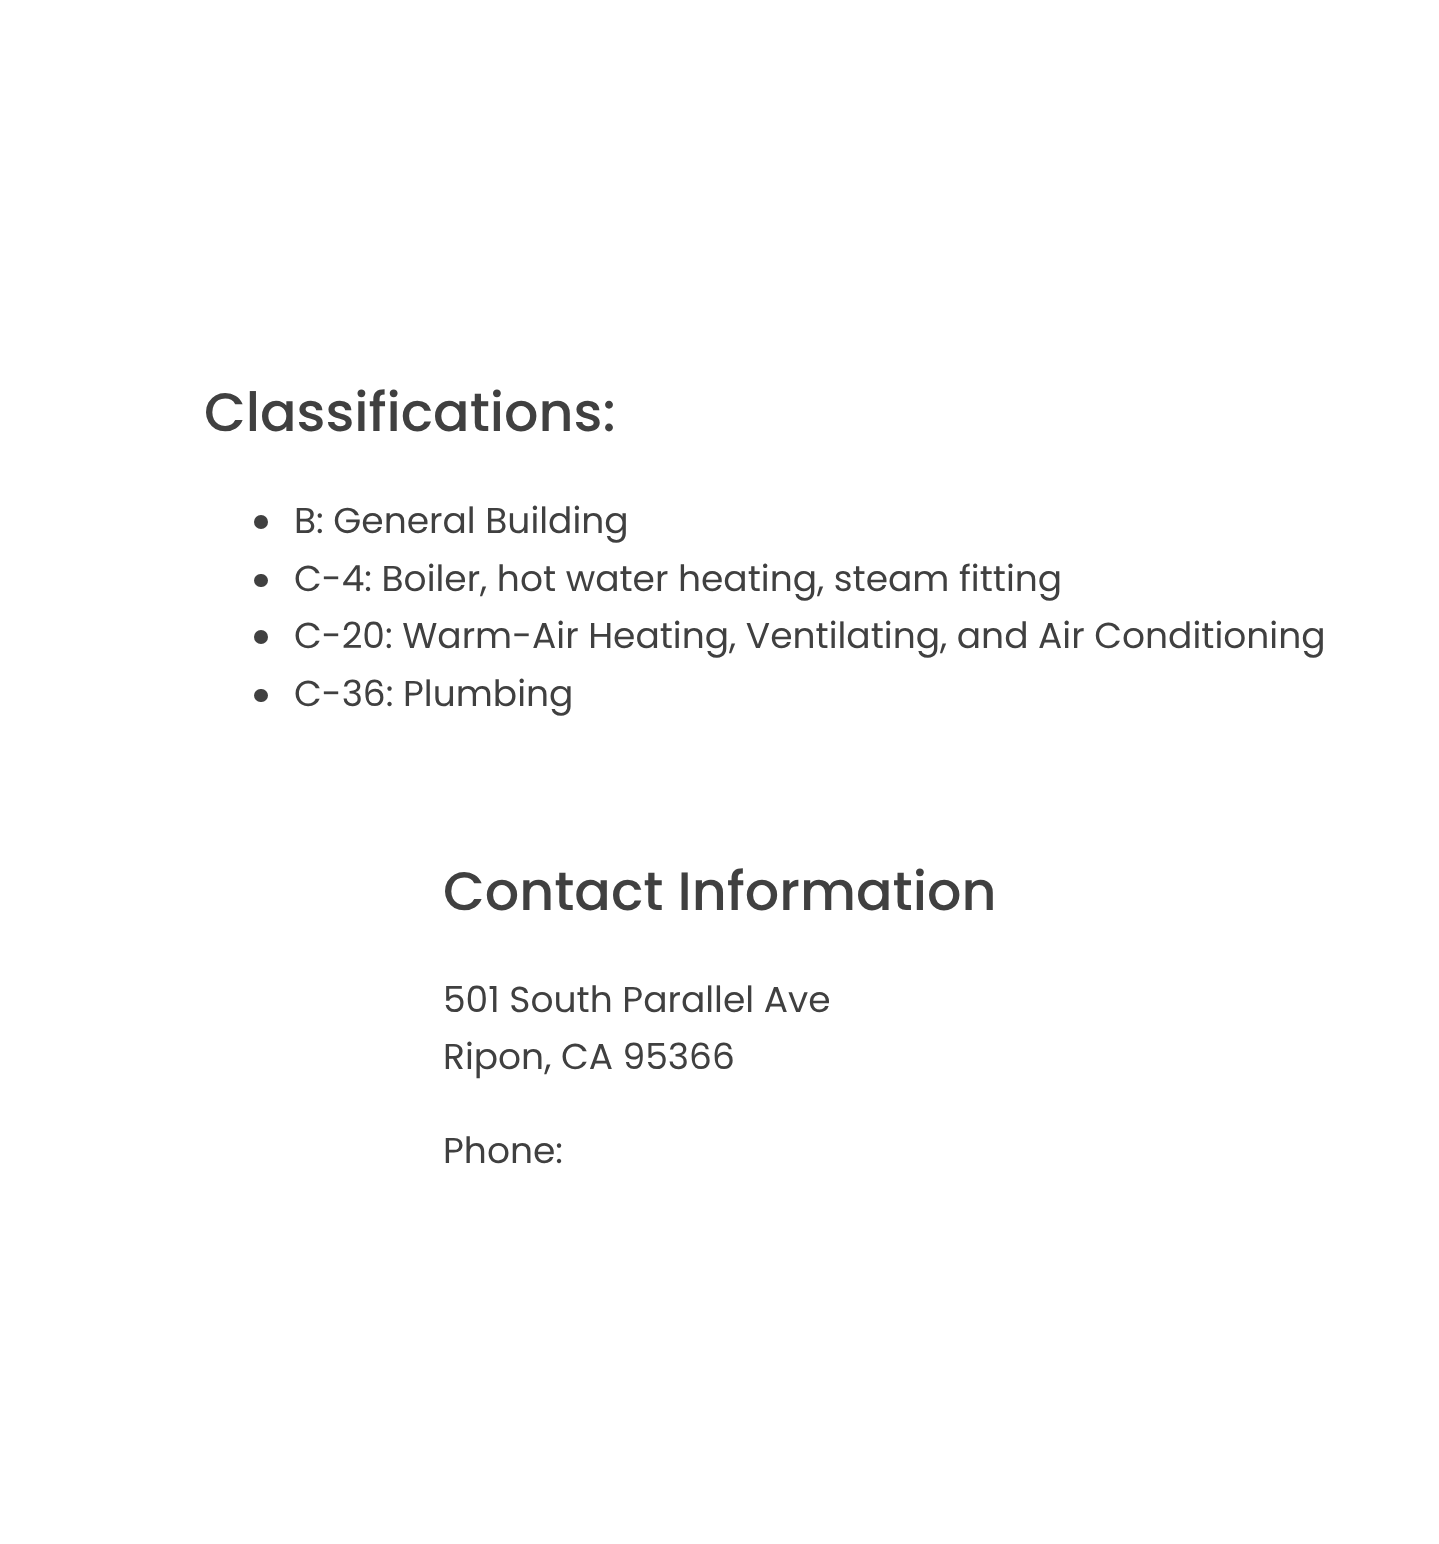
<svg xmlns="http://www.w3.org/2000/svg" width="1439" height="1544" viewBox="0 0 1439 1544">
  <rect width="100%" height="100%" fill="#fff"/>
  <circle cx="261" cy="522" r="7" fill="#404040"/>
  <rect x="254" y="574" width="14" height="13" rx="6.5" fill="#404040"/>
  <circle cx="261" cy="637" r="7" fill="#404040"/>
  <rect x="254" y="689" width="14" height="13" rx="6.5" fill="#404040"/>
  <text x="204" y="431" font-family="Poppins" font-size="54" font-weight="500" fill="#404040">Classifications:</text>
  <g font-family="Poppins" font-size="36" fill="#404040">
    <text x="294" y="533">B: General Building</text>
    <text x="294" y="591">C-4: Boiler, hot water heating, steam fitting</text>
    <text x="294" y="648">C-20: Warm-Air Heating, Ventilating, and Air Conditioning</text>
    <text x="294" y="706">C-36: Plumbing</text>
  </g>
  <text x="443" y="910" font-family="Poppins" font-size="54" font-weight="500" fill="#404040">Contact Information</text>
  <g font-family="Poppins" font-size="36" fill="#404040">
    <text x="443" y="1012">501 South Parallel Ave</text>
    <text x="443" y="1069">Ripon, CA 95366</text>
    <text x="443" y="1163">Phone:</text>
  </g>
</svg>
